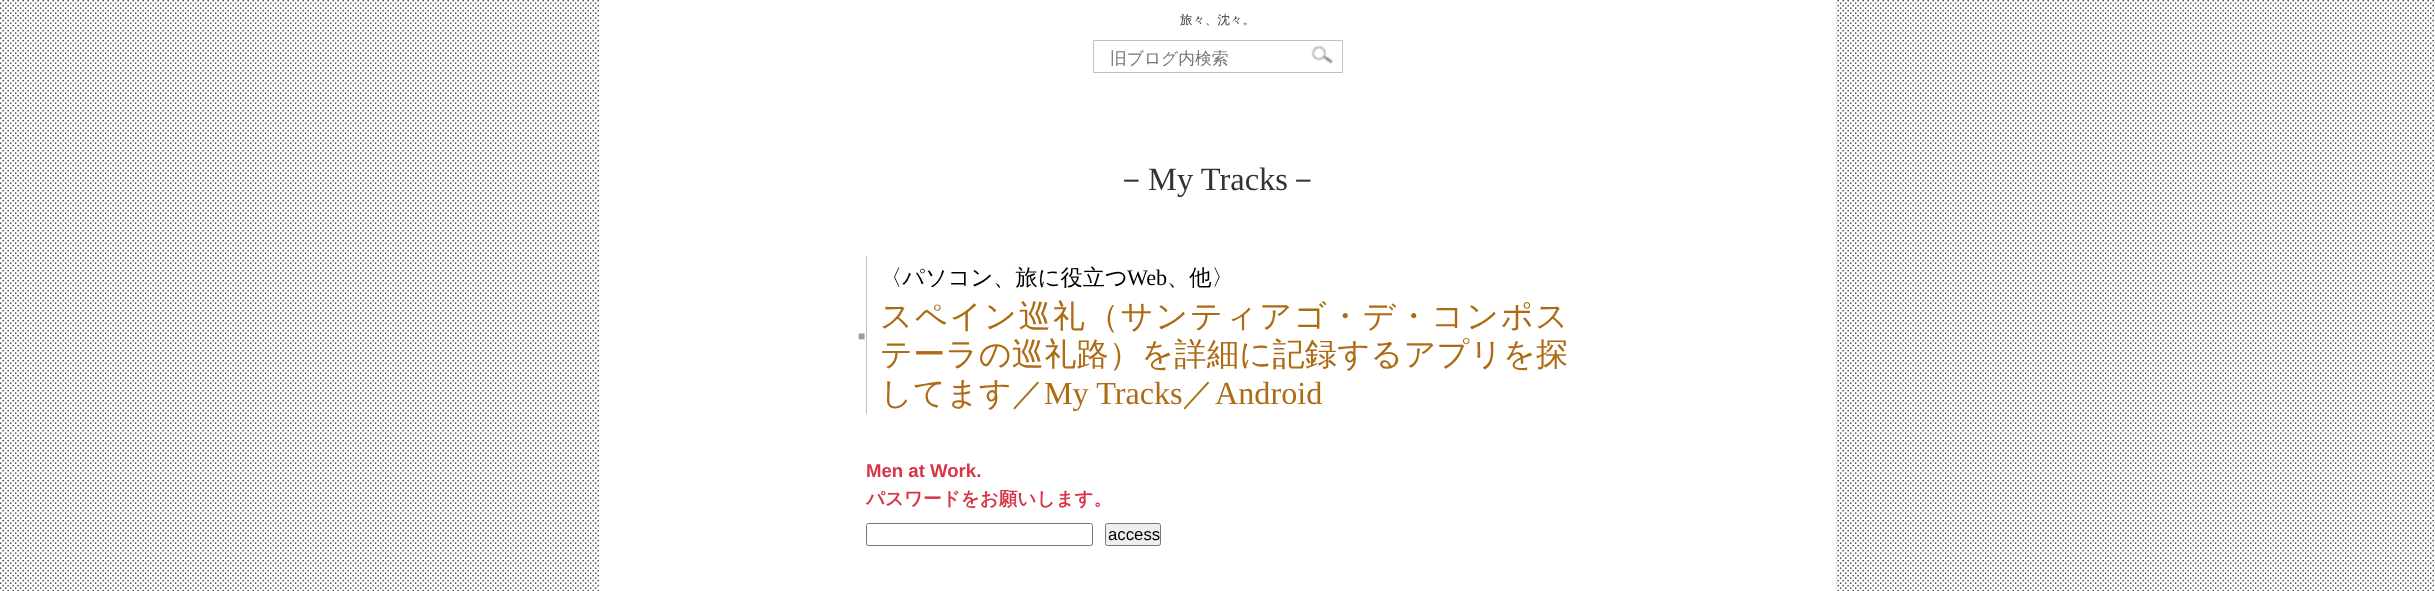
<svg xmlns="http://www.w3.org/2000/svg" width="2435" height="591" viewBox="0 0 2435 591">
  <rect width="100%" height="100%" fill="#fff"/>
  <image x="0" y="0" width="2435" height="591" href="img/1.png"/>
  <path d="M599 0h1237v591H599z" fill="#fff"/>
  <path d="M1093.5 40.5h249v32H1093.5z" fill="none" stroke="#c1c1c1"/>
  <image x="1311" y="45" width="23" height="19" href="img/2.png"/>
  <path d="M866 256h1v158H866z" fill="#c1c1c1"/>
  <rect x="866.5" y="523.5" width="226" height="22" rx="2" fill="none" stroke="#767676"/>
  <rect x="1105.5" y="523.5" width="55" height="22" rx="2" fill="#efefef" stroke="#767676"/>
  <text x="1180" y="24" font-family="WenQuanYi Zen Hei" font-size="12.5" font-weight="500" fill="#333">旅々、沈々。</text>
  <text x="1110" y="64" font-family="WenQuanYi Zen Hei" font-size="16.75" font-weight="500" fill="#757575">旧ブログ内検索</text>
  <text x="1115" y="190" font-family="WenQuanYi Zen Hei" font-size="32.5" font-weight="500" fill="#333">－</text>
  <text x="1148" y="190" font-family="Liberation Serif" font-size="32.5" fill="#333">My Tracks</text>
  <text x="1287" y="190" font-family="WenQuanYi Zen Hei" font-size="32.5" font-weight="500" fill="#333">－</text>
  <text x="858" y="340" font-family="Liberation Serif" font-size="12" fill="#9c9c9c">■</text>
  <text x="880" y="285" font-family="WenQuanYi Zen Hei" font-size="22.25" font-weight="500" fill="#000">〈パソコン、旅に役立つ</text>
  <text x="1127" y="285" font-family="Liberation Serif" font-size="22.25" fill="#000">Web</text>
  <text x="1167" y="285" font-family="WenQuanYi Zen Hei" font-size="22.25" font-weight="500" fill="#000">、他〉</text>
  <text x="880" y="327" font-family="WenQuanYi Zen Hei" font-size="32.2" font-weight="500" letter-spacing="1.75" fill="#ae6b14">スペイン巡礼（サンティアゴ・デ・コンポス</text>
  <text x="880" y="365" font-family="WenQuanYi Zen Hei" font-size="32.2" font-weight="500" letter-spacing="0.2" fill="#ae6b14">テーラの巡礼路）を詳細に記録するアプリを探</text>
  <text x="880" y="404" font-family="WenQuanYi Zen Hei" font-size="32.2" font-weight="500" fill="#ae6b14">してます／</text>
  <text x="1044" y="404" font-family="Liberation Serif" font-size="32.2" fill="#ae6b14">My Tracks</text>
  <text x="1182" y="404" font-family="WenQuanYi Zen Hei" font-size="32.2" font-weight="500" fill="#ae6b14">／</text>
  <text x="1215" y="404" font-family="Liberation Serif" font-size="32.2" fill="#ae6b14">Android</text>
  <text x="866" y="477" font-family="Liberation Sans" font-size="18.6" font-weight="bold" fill="#d63447">Men at Work.</text>
  <text x="866" y="505" font-family="WenQuanYi Zen Hei" font-size="18.6" font-weight="bold" fill="#d63447">パスワードをお願いします。</text>
  <text x="1108" y="540" font-family="Liberation Sans" font-size="16.75" fill="#000">access</text>
</svg>
